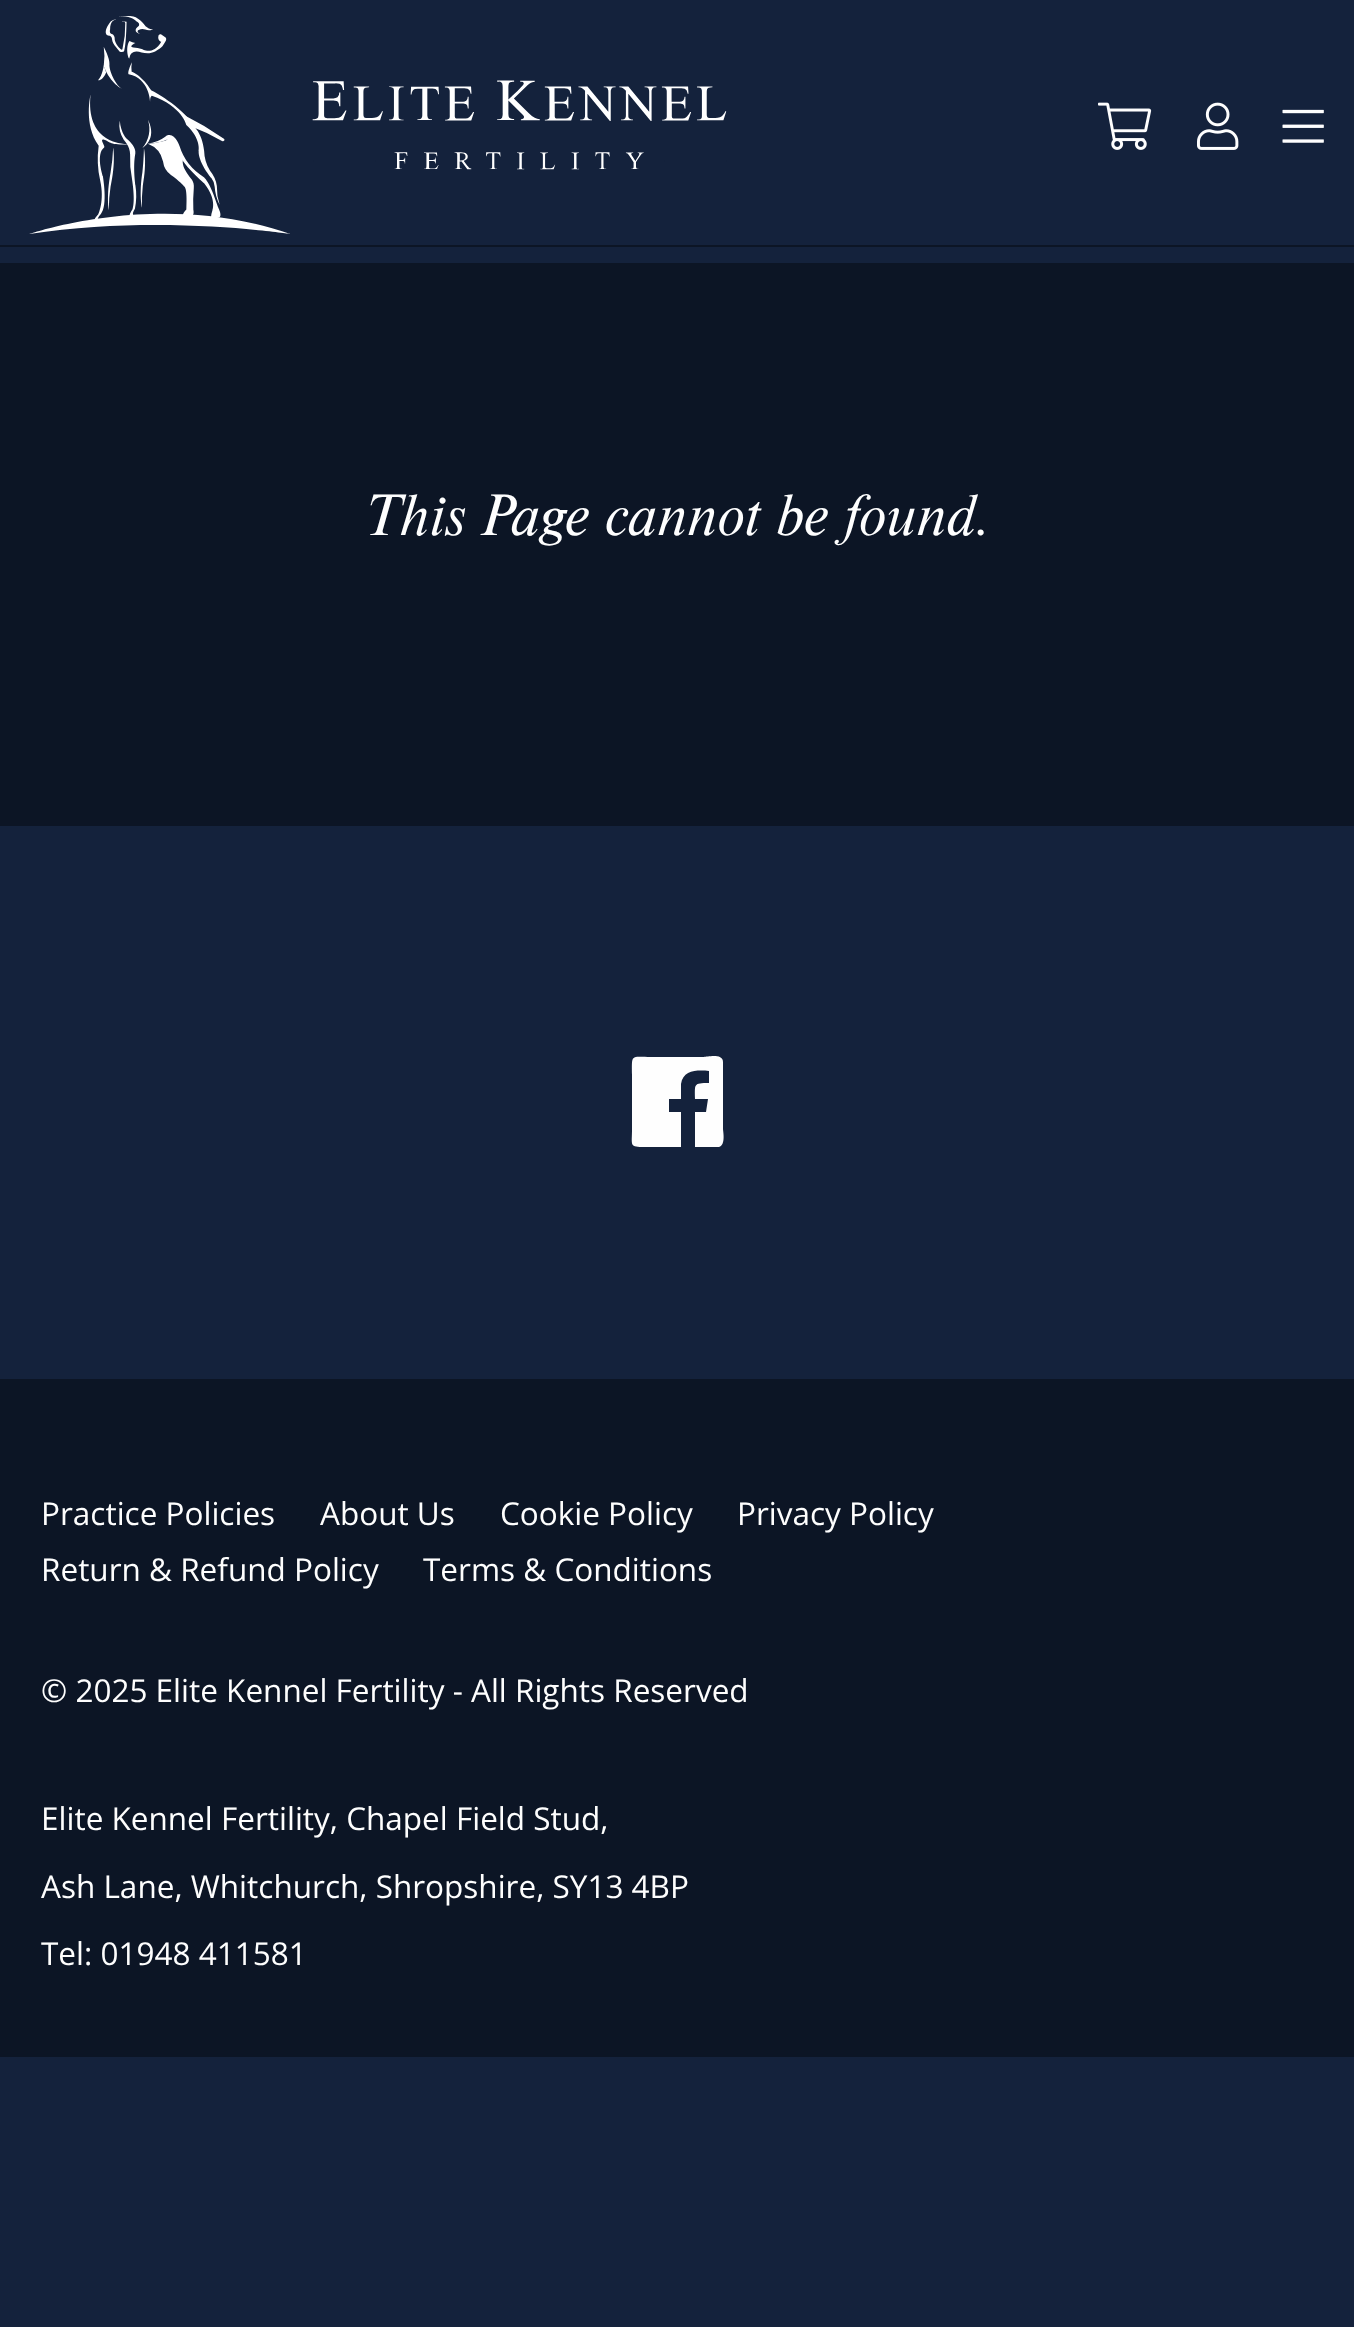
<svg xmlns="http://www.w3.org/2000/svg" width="1354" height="2327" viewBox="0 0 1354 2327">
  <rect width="100%" height="100%" fill="#14223c"/>
  <path d="M0 245h1354v2H0z" fill="#0c1525"/>
  <image x="29" y="16" width="698" height="218" href="img/1.png"/>
  <image x="1098" y="102" width="54" height="48" href="img/2.png"/>
  <image x="1197" y="102" width="42" height="48" href="img/3.png"/>
  <image x="1282" y="109" width="42" height="34" href="img/4.png"/>
  <path d="M0 263h1354v563H0z" fill="#0c1525"/>
  <path d="M723 1062V1129C723 1131 726 1145 719 1147H695V1112H706L708 1099H695C695 1084 693 1083 709 1083V1071C697 1070 683 1070 681 1084V1099H669V1112H681V1147H645C629 1147 632 1146 632 1129V1075C632 1054 630 1057 651 1057H704C707 1057 723 1053 723 1062Z" fill="#fefefe"/>
  <path d="M0 1379h1354v678H0z" fill="#0c1525"/>
  <text x="365" y="535" font-family="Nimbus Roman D" font-size="60.75" font-style="italic" fill="#fefefe">This Page cannot be found.</text>
  <g font-family="Open Sans" font-size="31.5" fill="#fefefe">
    <text x="41" y="1525">Practice Policies</text>
    <text x="320" y="1525">About Us</text>
    <text x="500" y="1525">Cookie Policy</text>
    <text x="737" y="1525">Privacy Policy</text>
    <text x="41" y="1581">Return &amp; Refund Policy</text>
    <text x="423" y="1581">Terms &amp; Conditions</text>
    <text x="41" y="1702">© 2025 Elite Kennel Fertility - All Rights Reserved</text>
    <text x="41" y="1830">Elite Kennel Fertility, Chapel Field Stud,</text>
    <text x="41" y="1898">Ash Lane, Whitchurch, Shropshire, SY13 4BP</text>
    <text x="41" y="1965">Tel: 01948 411581</text>
  </g>
</svg>
